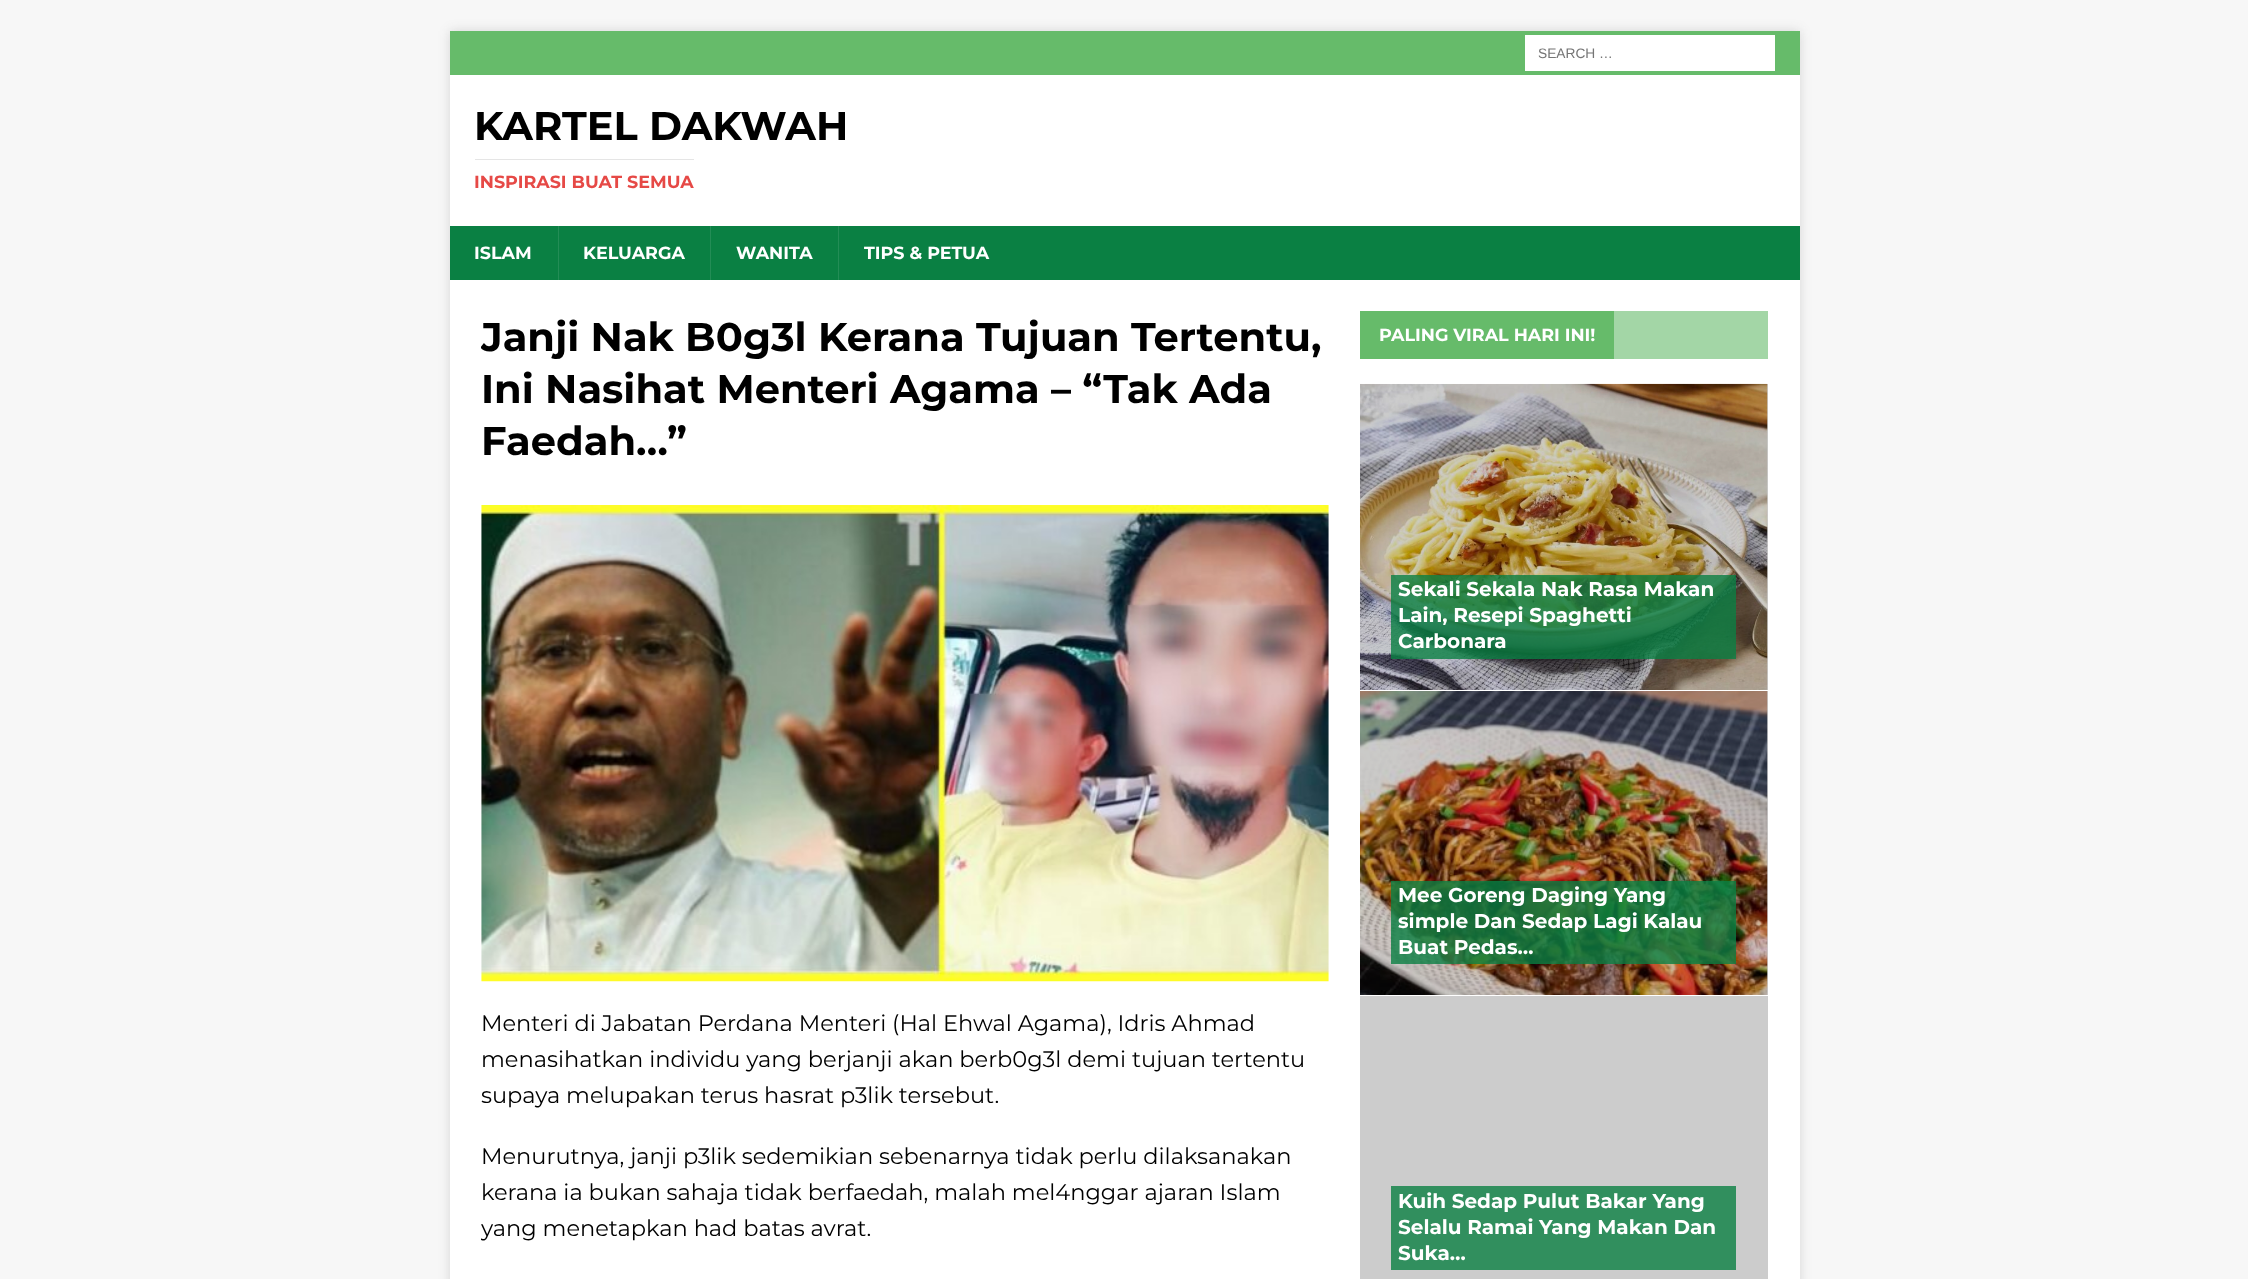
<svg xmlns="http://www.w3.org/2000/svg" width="2248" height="1279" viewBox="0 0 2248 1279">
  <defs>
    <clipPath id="clip1"><path d="M481 311h848v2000H481z"/></clipPath>
  </defs>
  <rect width="100%" height="100%" fill="#f7f7f7"/>
  <path d="M450 31h1350v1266H450z" fill="#3232322b" filter="blur(6px)"/>
  <path d="M450 31h1350v44H450z" fill="#66bb6a"/>
  <path d="M1525 35h250v36H1525z" fill="#fff"/>
  <path d="M450 75h1350v151H450z" fill="#fff"/>
  <path d="M475 159h219v1H475z" fill="#e5e5e5"/>
  <path d="M450 226h1350v54H450z" fill="#0a8043"/>
  <path d="M558 226h1v54H558z" fill="#238d56"/>
  <path d="M710 226h1v54H710z" fill="#238d56"/>
  <path d="M838 226h1v54H838z" fill="#238d56"/>
  <path d="M450 280h1350v999H450z" fill="#fff"/>
  <path d="M1767 691h1v304H1767z" fill="#ccc"/>
  <path d="M1767 384h1v306H1767z" fill="#ccc"/>
  <image x="481" y="505" width="848" height="477" href="img/1.png"/>
  <path d="M1614 311h154v48H1614z" fill="#a3d6a6"/>
  <path d="M1360 311h254v48H1360z" fill="#66bb6a"/>
  <image x="1360" y="383" width="408" height="307" href="img/2.png"/>
  <path d="M1391 575h345v84H1391z" fill="#0a8043cc"/>
  <image x="1360" y="691" width="408" height="304" href="img/3.png"/>
  <path d="M1391 881h345v83H1391z" fill="#0a8043cc"/>
  <path d="M1360 996h408v283H1360z" fill="#ccc"/>
  <path d="M1391 1186h345v84H1391z" fill="#318f5e"/>
  <text x="1538" y="58" font-family="Liberation Sans" font-size="13.75" fill="#757575">SEARCH …</text>
  <text x="474" y="140" font-family="Montserrat" font-size="40" font-weight="bold" fill="#000">KARTEL DAKWAH</text>
  <text x="474" y="188" font-family="Montserrat" font-size="17.5" font-weight="bold" fill="#e64946">INSPIRASI BUAT SEMUA</text>
  <g font-family="Montserrat" font-size="17.5" font-weight="bold" fill="#fff">
    <text x="474" y="259">ISLAM</text>
    <text x="583" y="259">KELUARGA</text>
    <text x="736" y="259">WANITA</text>
    <text x="864" y="259">TIPS &amp; PETUA</text>
  </g>
  <g clip-path="url(#clip1)">
    <text x="481" y="351" font-family="Montserrat" font-size="40" font-weight="bold" fill="#000">Janji Nak B0g3l Kerana Tujuan Tertentu,</text>
  </g>
  <g font-family="Montserrat" font-size="40" font-weight="bold" fill="#000">
    <text x="481" y="403">Ini Nasihat Menteri Agama – “Tak Ada</text>
    <text x="481" y="455">Faedah…”</text>
  </g>
  <g font-family="Montserrat" font-size="22.5" fill="#000">
    <text x="481" y="1031">Menteri di Jabatan Perdana Menteri (Hal Ehwal Agama), Idris Ahmad</text>
    <text x="481" y="1067">menasihatkan individu yang berjanji akan berb0g3l demi tujuan tertentu</text>
    <text x="481" y="1103">supaya melupakan terus hasrat p3lik tersebut.</text>
    <text x="481" y="1164">Menurutnya, janji p3lik sedemikian sebenarnya tidak perlu dilaksanakan</text>
    <text x="481" y="1200">kerana ia bukan sahaja tidak berfaedah, malah mel4nggar ajaran Islam</text>
  </g>
  <g clip-path="url(#clip1)">
    <text x="481" y="1236" font-family="Montserrat" font-size="22.5" fill="#000">yang menetapkan had batas avrat.</text>
  </g>
  <text x="1379" y="341" font-family="Montserrat" font-size="17.5" font-weight="bold" fill="#fff">PALING VIRAL HARI INI!</text>
  <g font-family="Montserrat" font-size="20" font-weight="bold" fill="#fff">
    <text x="1398" y="596">Sekali Sekala Nak Rasa Makan</text>
    <text x="1398" y="622">Lain, Resepi Spaghetti</text>
    <text x="1398" y="648">Carbonara</text>
    <text x="1398" y="902">Mee Goreng Daging Yang</text>
    <text x="1398" y="928">simple Dan Sedap Lagi Kalau</text>
    <text x="1398" y="954">Buat Pedas…</text>
    <text x="1398" y="1208">Kuih Sedap Pulut Bakar Yang</text>
    <text x="1398" y="1234">Selalu Ramai Yang Makan Dan</text>
    <text x="1398" y="1260">Suka…</text>
  </g>
</svg>
